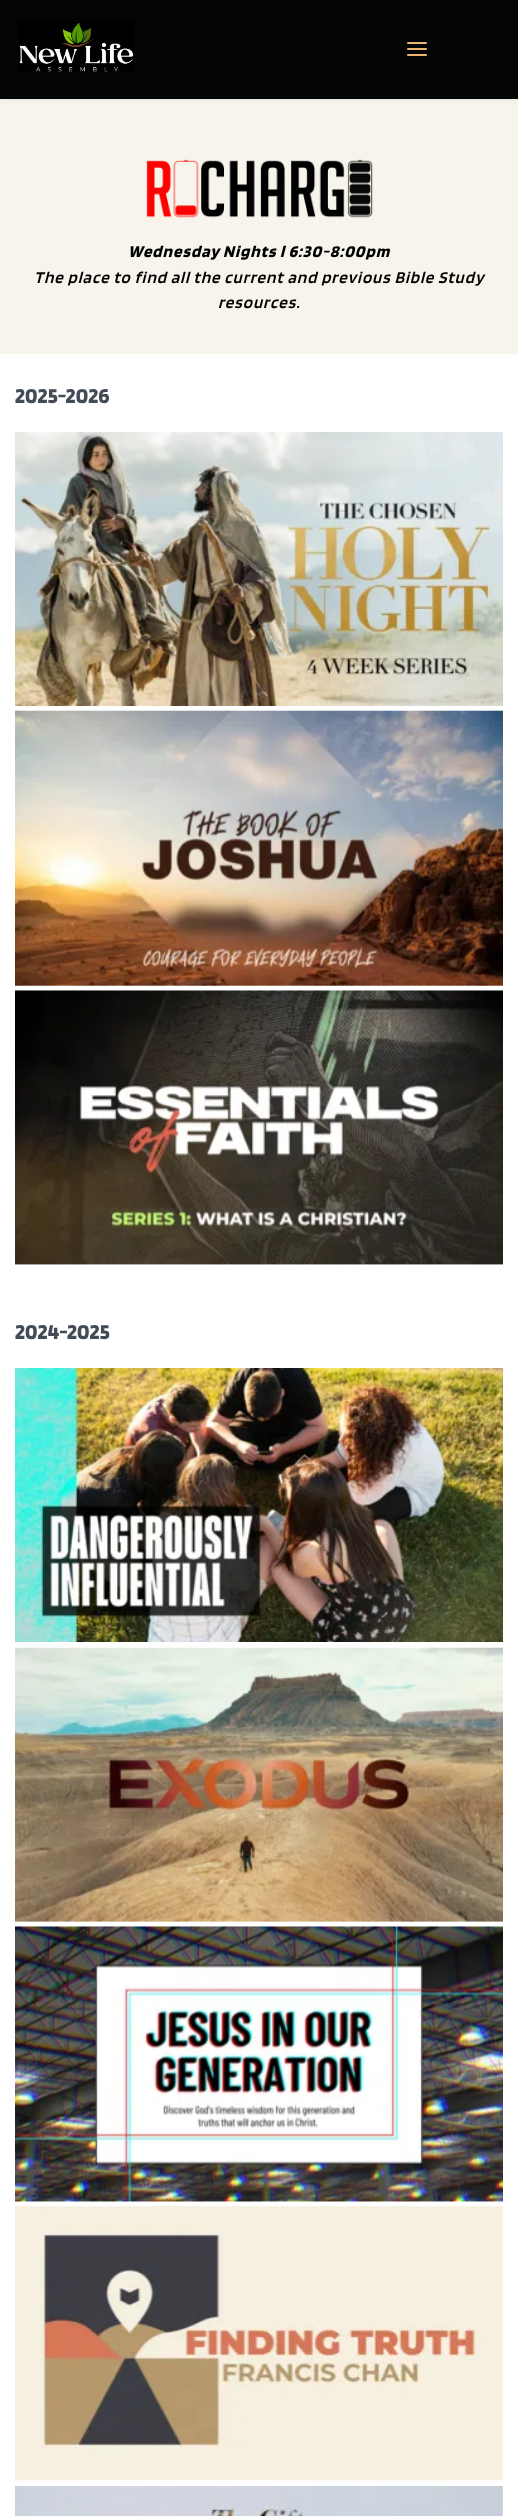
<svg xmlns="http://www.w3.org/2000/svg" width="518" height="2516" viewBox="0 0 518 2516">
  <rect width="100%" height="100%" fill="#fff"/>
  <path d="M0 99h518v255H0z" fill="#f7f5eb"/>
  <path d="M0 0h518v99H0z" fill="#0000001a" filter="blur(2.5px)"/>
  <path d="M0 0h518v99H0z" fill="#030404"/>
  <image x="19" y="22" width="115" height="50" href="img/1.png"/>
  <rect x="407" y="42" width="20" height="2" rx="1" fill="#ecb36d"/>
  <rect x="407" y="48" width="20" height="2" rx="1" fill="#ecb36d"/>
  <rect x="407" y="54" width="20" height="2" rx="1" fill="#ecb36d"/>
  <image x="146" y="159" width="227" height="59" href="img/2.png"/>
  <image x="15" y="432" width="488" height="274" href="img/3.png"/>
  <image x="15" y="710" width="488" height="276" href="img/4.png"/>
  <image x="15" y="990" width="488" height="275" href="img/5.png"/>
  <image x="15" y="1368" width="488" height="274" href="img/6.png"/>
  <image x="15" y="1647" width="488" height="275" href="img/7.png"/>
  <image x="15" y="1926" width="488" height="276" href="img/8.png"/>
  <image x="15" y="2206" width="488" height="275" href="img/9.png"/>
  <image x="15" y="2486" width="488" height="30" href="img/10.png"/>
  <text x="128" y="257" font-family="Blinker" font-size="17" font-weight="bold" font-style="italic" letter-spacing="1" fill="#000">Wednesday Nights l 6:30-8:00pm</text>
  <g font-family="Blinker" font-size="17" font-weight="600" font-style="italic" letter-spacing="1" fill="#000">
    <text x="34" y="283">The place to find all the current and previous Bible Study</text>
    <text x="218" y="308">resources.</text>
  </g>
  <g font-family="Blinker" font-size="22" font-weight="bold" fill="#434b56">
    <text x="15" y="403">2025-2026</text>
    <text x="15" y="1339">2024-2025</text>
  </g>
</svg>
